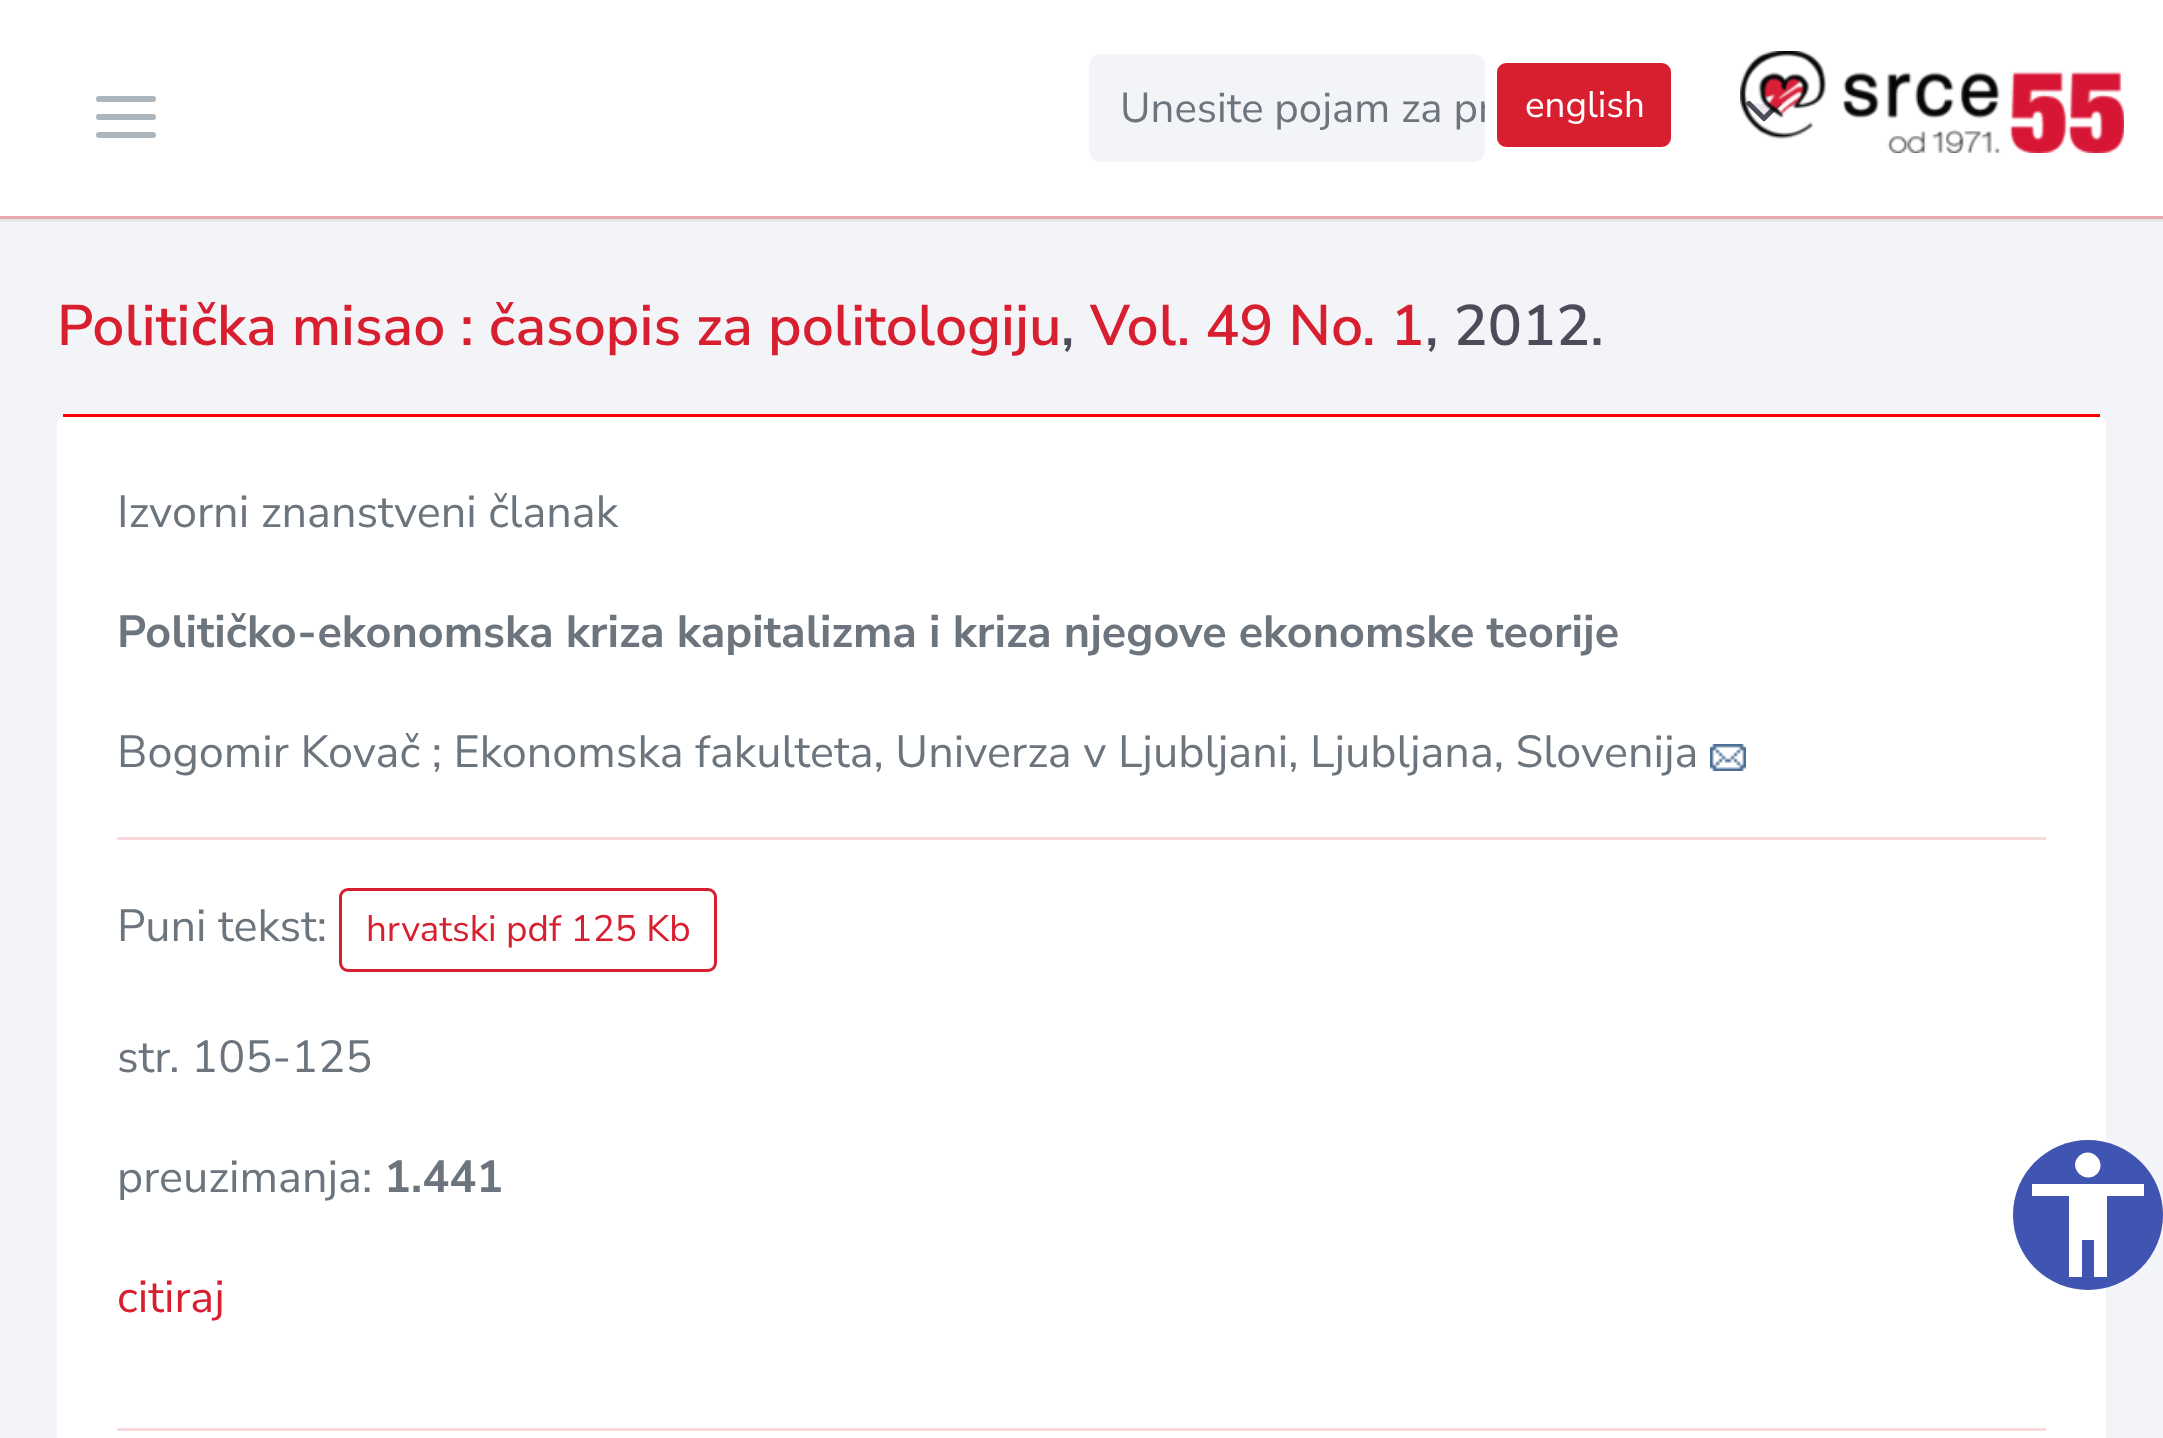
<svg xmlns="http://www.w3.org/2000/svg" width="2163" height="1438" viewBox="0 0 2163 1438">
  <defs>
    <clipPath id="clip1"><rect x="1089" y="54" width="396" height="108" rx="12"/></clipPath>
  </defs>
  <rect width="100%" height="100%" fill="#f3f4f7"/>
  <path d="M0 219h2163v3H0z" fill="#4b4b5a12" filter="blur(0.5px)"/>
  <path d="M0 216h2163v3H0z" fill="#f1b1b6"/>
  <path d="M0 3h2163v216H0z" fill="#4b4b5a12" filter="blur(0.5px)"/>
  <path d="M0 0h2163v216H0z" fill="#fff"/>
  <path d="M99 117H153M99 99H153M99 135H153" fill="none" stroke="#adb5bd" stroke-width="6" stroke-linecap="round" stroke-linejoin="round"/>
  <rect x="1089" y="54" width="396" height="108" rx="12" fill="#f3f4f7"/>
  <rect x="1498.5" y="64.5" width="171" height="81" rx="7.5" fill="#d81f30" stroke="#d81f30" stroke-width="3"/>
  <path d="M1749 103.5L1764 118.5L1779 103.5" fill="#e9e9eb" stroke="#4b4b5a" stroke-width="5" stroke-linecap="round" stroke-linejoin="round"/>
  <image x="1740" y="51" width="384" height="102" href="img/1.png"/>
  <rect x="57" y="414" width="2049" height="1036" rx="12" fill="#fff"/>
  <path d="M63 414h2037v3H63z" fill="#f00"/>
  <image x="1710" y="744" width="36" height="27" href="img/2.png"/>
  <path d="M117 837h1929v3H117z" fill="#f8d9dc"/>
  <rect x="340.5" y="889.5" width="375" height="81" rx="7.5" fill="none" stroke="#d81f30" stroke-width="3"/>
  <path d="M117 1428h1929v3H117z" fill="#f8d9dc"/>
  <circle cx="2088" cy="1215" r="75" fill="#4054b2"/>
  <path d="M2144 1196H2107V1277H2094V1240H2082V1277H2069V1196H2032V1184H2144ZM2079 1156C2091 1145 2108 1162 2097 1174C2085 1185 2067 1168 2079 1156Z" fill="#fff"/>
  <g clip-path="url(#clip1)">
    <text x="1120" y="122" font-family="Nunito Sans" font-size="42" fill="#6c757d">Unesite pojam za pr</text>
  </g>
  <text x="1525" y="117" font-family="Nunito Sans" font-size="36.75" fill="#fff">english</text>
  <text x="57" y="345" font-family="Nunito Sans" font-size="57" font-weight="600" fill="#d81f30">Politička misao : časopis za politologiju</text>
  <text x="1061" y="345" font-family="Nunito Sans" font-size="57" font-weight="600" fill="#4b4b5a">,</text>
  <text x="1090" y="345" font-family="Nunito Sans" font-size="57" font-weight="600" fill="#d81f30">Vol. 49 No. 1</text>
  <text x="1425" y="345" font-family="Nunito Sans" font-size="57" font-weight="600" fill="#4b4b5a">, 2012.</text>
  <text x="117" y="527" font-family="Nunito Sans" font-size="45" fill="#6c757d">Izvorni znanstveni članak</text>
  <text x="117" y="647" font-family="Nunito Sans" font-size="45" font-weight="bold" fill="#6c757d">Političko-ekonomska kriza kapitalizma i kriza njegove ekonomske teorije</text>
  <g font-family="Nunito Sans" font-size="45" fill="#6c757d">
    <text x="117" y="767">Bogomir Kovač ; Ekonomska fakulteta, Univerza v Ljubljani, Ljubljana, Slovenija</text>
    <text x="117" y="941">Puni tekst:</text>
  </g>
  <text x="366" y="941" font-family="Nunito Sans" font-size="36.75" fill="#d81f30">hrvatski pdf 125 Kb</text>
  <g font-family="Nunito Sans" font-size="45" fill="#6c757d">
    <text x="117" y="1072">str. 105-125</text>
    <text x="117" y="1192">preuzimanja:</text>
  </g>
  <text x="384" y="1192" font-family="Nunito Sans" font-size="45" font-weight="bold" fill="#6c757d">1.441</text>
  <text x="117" y="1312" font-family="Nunito Sans" font-size="45" fill="#d81f30">citiraj</text>
</svg>
